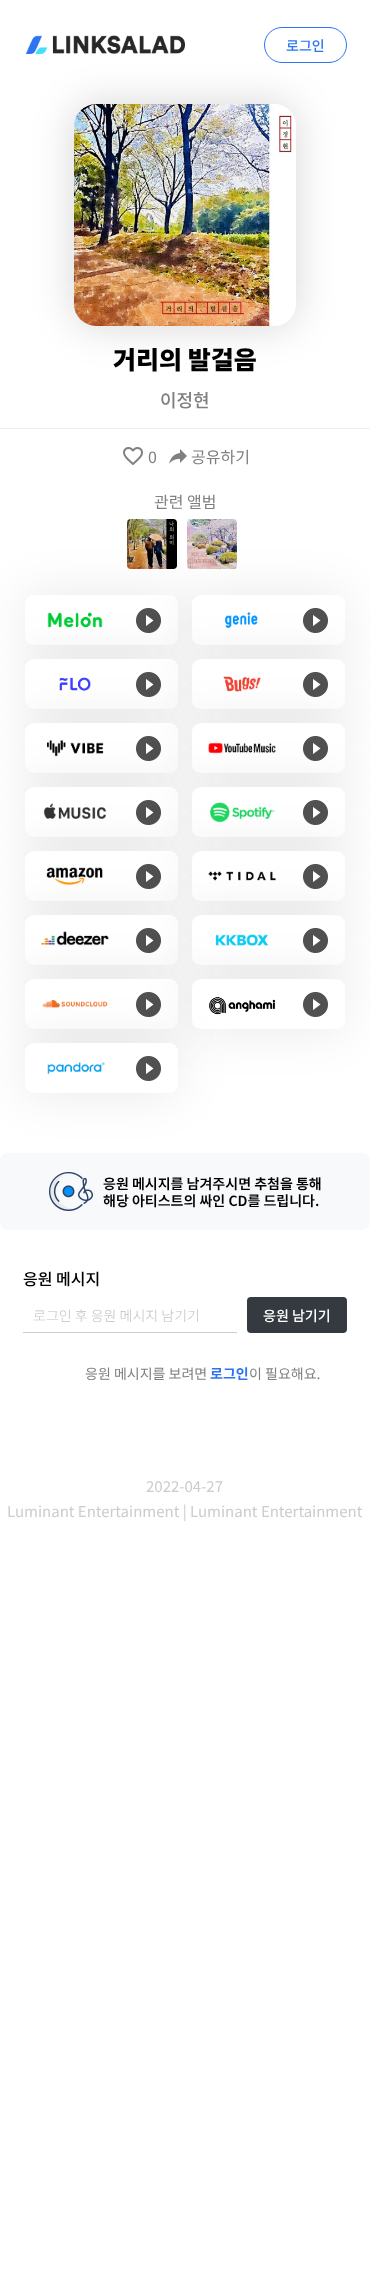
<svg xmlns="http://www.w3.org/2000/svg" width="370" height="2284" viewBox="0 0 370 2284">
  <defs>
    <clipPath id="clip1"><path d="M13 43H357V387H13ZM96 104H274C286 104 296 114 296 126V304C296 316 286 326 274 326H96C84 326 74 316 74 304V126C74 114 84 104 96 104Z" clip-rule="evenodd"/></clipPath>
    <clipPath id="clip2"><path d="M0 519H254V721H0ZM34 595H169C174 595 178 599 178 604V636C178 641 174 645 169 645H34C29 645 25 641 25 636V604C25 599 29 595 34 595Z" clip-rule="evenodd"/></clipPath>
  </defs>
  <rect width="100%" height="100%" fill="#fff"/>
  <image x="25" y="35" width="160" height="19" href="img/1.png"/>
  <rect x="264.5" y="27.5" width="82" height="35" rx="17.5" fill="none" stroke="#2c74f4"/>
  <g clip-path="url(#clip1)">
    <rect x="74" y="104" width="222" height="222" rx="22" fill="#00000029" filter="blur(20px)"/>
  </g>
  <image x="74" y="104" width="218" height="222" href="img/2.png"/>
  <path d="M0 428h370v1H0z" fill="#eee"/>
  <image x="123" y="447" width="20" height="19" href="img/3.png"/>
  <image x="169" y="449" width="18" height="15" href="img/4.png"/>
  <image x="127" y="519" width="50" height="50" href="img/5.png"/>
  <image x="187" y="519" width="50" height="50" href="img/6.png"/>
  <g clip-path="url(#clip2)">
    <rect x="25" y="595" width="153" height="50" rx="9" fill="#00000017" filter="blur(25px)"/>
  </g>
  <image x="47" y="612" width="56" height="16" href="img/7.png"/>
  <image x="136" y="608" width="25" height="25" href="img/8.png"/>
  <rect x="192" y="595" width="153" height="50" rx="9" fill="#00000017" filter="blur(25px)"/>
  <rect x="192" y="595" width="153" height="50" rx="9" fill="#fff"/>
  <image x="225" y="612" width="33" height="17" href="img/9.png"/>
  <image x="303" y="608" width="25" height="25" href="img/8.png"/>
  <rect x="25" y="659" width="153" height="50" rx="9" fill="#00000017" filter="blur(25px)"/>
  <rect x="25" y="659" width="153" height="50" rx="9" fill="#fff"/>
  <image x="59" y="677" width="32" height="14" href="img/10.png"/>
  <rect x="118" y="659" width="60" height="50" rx="9" fill="#fff"/>
  <image x="136" y="672" width="25" height="25" href="img/8.png"/>
  <rect x="192" y="659" width="153" height="50" rx="9" fill="#00000017" filter="blur(25px)"/>
  <rect x="192" y="659" width="153" height="50" rx="9" fill="#fff"/>
  <image x="223" y="676" width="38" height="16" href="img/11.png"/>
  <image x="303" y="672" width="25" height="25" href="img/8.png"/>
  <rect x="25" y="723" width="153" height="50" rx="9" fill="#00000017" filter="blur(25px)"/>
  <rect x="25" y="723" width="153" height="50" rx="9" fill="#fff"/>
  <image x="47" y="740" width="57" height="17" href="img/12.png"/>
  <rect x="118" y="723" width="60" height="50" rx="9" fill="#fff"/>
  <image x="136" y="736" width="25" height="25" href="img/8.png"/>
  <rect x="192" y="723" width="153" height="50" rx="9" fill="#00000017" filter="blur(25px)"/>
  <rect x="192" y="723" width="153" height="50" rx="9" fill="#fff"/>
  <image x="208" y="742" width="68" height="12" href="img/13.png"/>
  <image x="303" y="736" width="25" height="25" href="img/8.png"/>
  <rect x="25" y="787" width="153" height="50" rx="9" fill="#00000017" filter="blur(25px)"/>
  <rect x="25" y="787" width="153" height="50" rx="9" fill="#fff"/>
  <image x="43" y="803" width="64" height="16" href="img/14.png"/>
  <rect x="118" y="787" width="60" height="50" rx="9" fill="#fff"/>
  <image x="136" y="800" width="25" height="25" href="img/8.png"/>
  <rect x="192" y="787" width="153" height="50" rx="9" fill="#00000017" filter="blur(25px)"/>
  <rect x="192" y="787" width="153" height="50" rx="9" fill="#fff"/>
  <image x="210" y="802" width="65" height="21" href="img/15.png"/>
  <image x="303" y="800" width="25" height="25" href="img/8.png"/>
  <rect x="25" y="851" width="153" height="50" rx="9" fill="#00000017" filter="blur(25px)"/>
  <rect x="25" y="851" width="153" height="50" rx="9" fill="#fff"/>
  <image x="46" y="867" width="57" height="18" href="img/16.png"/>
  <rect x="118" y="851" width="60" height="50" rx="9" fill="#fff"/>
  <image x="136" y="864" width="25" height="25" href="img/8.png"/>
  <rect x="192" y="851" width="153" height="50" rx="9" fill="#00000017" filter="blur(25px)"/>
  <rect x="192" y="851" width="153" height="50" rx="9" fill="#fff"/>
  <image x="208" y="871" width="68" height="10" href="img/17.png"/>
  <image x="303" y="864" width="25" height="25" href="img/8.png"/>
  <rect x="25" y="915" width="153" height="50" rx="9" fill="#00000017" filter="blur(25px)"/>
  <rect x="25" y="915" width="153" height="50" rx="9" fill="#fff"/>
  <image x="40" y="931" width="69" height="15" href="img/18.png"/>
  <rect x="118" y="915" width="60" height="50" rx="9" fill="#fff"/>
  <image x="136" y="928" width="25" height="25" href="img/8.png"/>
  <rect x="192" y="915" width="153" height="50" rx="9" fill="#00000017" filter="blur(25px)"/>
  <rect x="192" y="915" width="153" height="50" rx="9" fill="#fff"/>
  <image x="215" y="934" width="54" height="12" href="img/19.png"/>
  <image x="303" y="928" width="25" height="25" href="img/8.png"/>
  <rect x="25" y="979" width="153" height="50" rx="9" fill="#00000017" filter="blur(25px)"/>
  <rect x="25" y="979" width="153" height="50" rx="9" fill="#fff"/>
  <image x="42" y="1000" width="66" height="8" href="img/20.png"/>
  <rect x="118" y="979" width="60" height="50" rx="9" fill="#fff"/>
  <image x="136" y="992" width="25" height="25" href="img/8.png"/>
  <rect x="192" y="979" width="153" height="50" rx="9" fill="#00000017" filter="blur(25px)"/>
  <rect x="192" y="979" width="153" height="50" rx="9" fill="#fff"/>
  <image x="209" y="997" width="67" height="18" href="img/21.png"/>
  <image x="303" y="992" width="25" height="25" href="img/8.png"/>
  <rect y="1153" width="370" height="77" rx="8" fill="#f8f9fa"/>
  <rect x="25" y="1043" width="153" height="50" rx="9" fill="#00000017" filter="blur(25px)"/>
  <rect x="25" y="1043" width="153" height="50" rx="9" fill="#fff"/>
  <image x="47" y="1062" width="58" height="12" href="img/22.png"/>
  <rect x="118" y="1043" width="60" height="50" rx="9" fill="#fff"/>
  <image x="136" y="1056" width="25" height="25" href="img/8.png"/>
  <image x="49" y="1172" width="44" height="39" href="img/23.png"/>
  <path d="M23 1332h214v1H23z" fill="#cdcdcd"/>
  <rect x="247" y="1297" width="100" height="36" rx="4" fill="#343a40"/>
  <text x="286" y="51" font-family="Noto Sans KR" font-size="14" font-weight="500" fill="#2c74f4">로그인</text>
  <text x="113" y="369" font-family="Noto Sans KR" font-size="25" font-weight="900" fill="#000">거리의 발걸음</text>
  <text x="160" y="407" font-family="Noto Sans KR" font-size="18" font-weight="500" fill="#808080">이정현</text>
  <g font-family="Noto Sans KR" font-size="16" fill="#808080">
    <text x="148" y="463">0</text>
    <text x="191" y="463">공유하기</text>
    <text x="154" y="508">관련 앨범</text>
  </g>
  <g font-family="Noto Sans KR" font-size="14" font-weight="600" fill="#000">
    <text x="103" y="1189">응원 메시지를 남겨주시면 추첨을 통해</text>
    <text x="103" y="1206">해당 아티스트의 싸인 CD를 드립니다.</text>
  </g>
  <text x="23" y="1285" font-family="Noto Sans KR" font-size="16" font-weight="500" fill="#000">응원 메시지</text>
  <text x="33" y="1321" font-family="Noto Sans KR" font-size="14" font-weight="300" fill="#c1c1c1">로그인 후 응원 메시지 남기기</text>
  <text x="263" y="1321" font-family="Noto Sans KR" font-size="14" font-weight="500" fill="#fff">응원 남기기</text>
  <text x="85" y="1379" font-family="Noto Sans KR" font-size="14" fill="#808080">응원 메시지를 보려면</text>
  <text x="210" y="1379" font-family="Noto Sans KR" font-size="14" font-weight="bold" fill="#2c74f4">로그인</text>
  <text x="249" y="1379" font-family="Noto Sans KR" font-size="14" fill="#808080">이 필요해요.</text>
  <g font-family="Noto Sans KR" font-size="15" fill="#ccc">
    <text x="146" y="1492">2022-04-27</text>
    <text x="7" y="1517">Luminant Entertainment | Luminant Entertainment</text>
  </g>
</svg>
